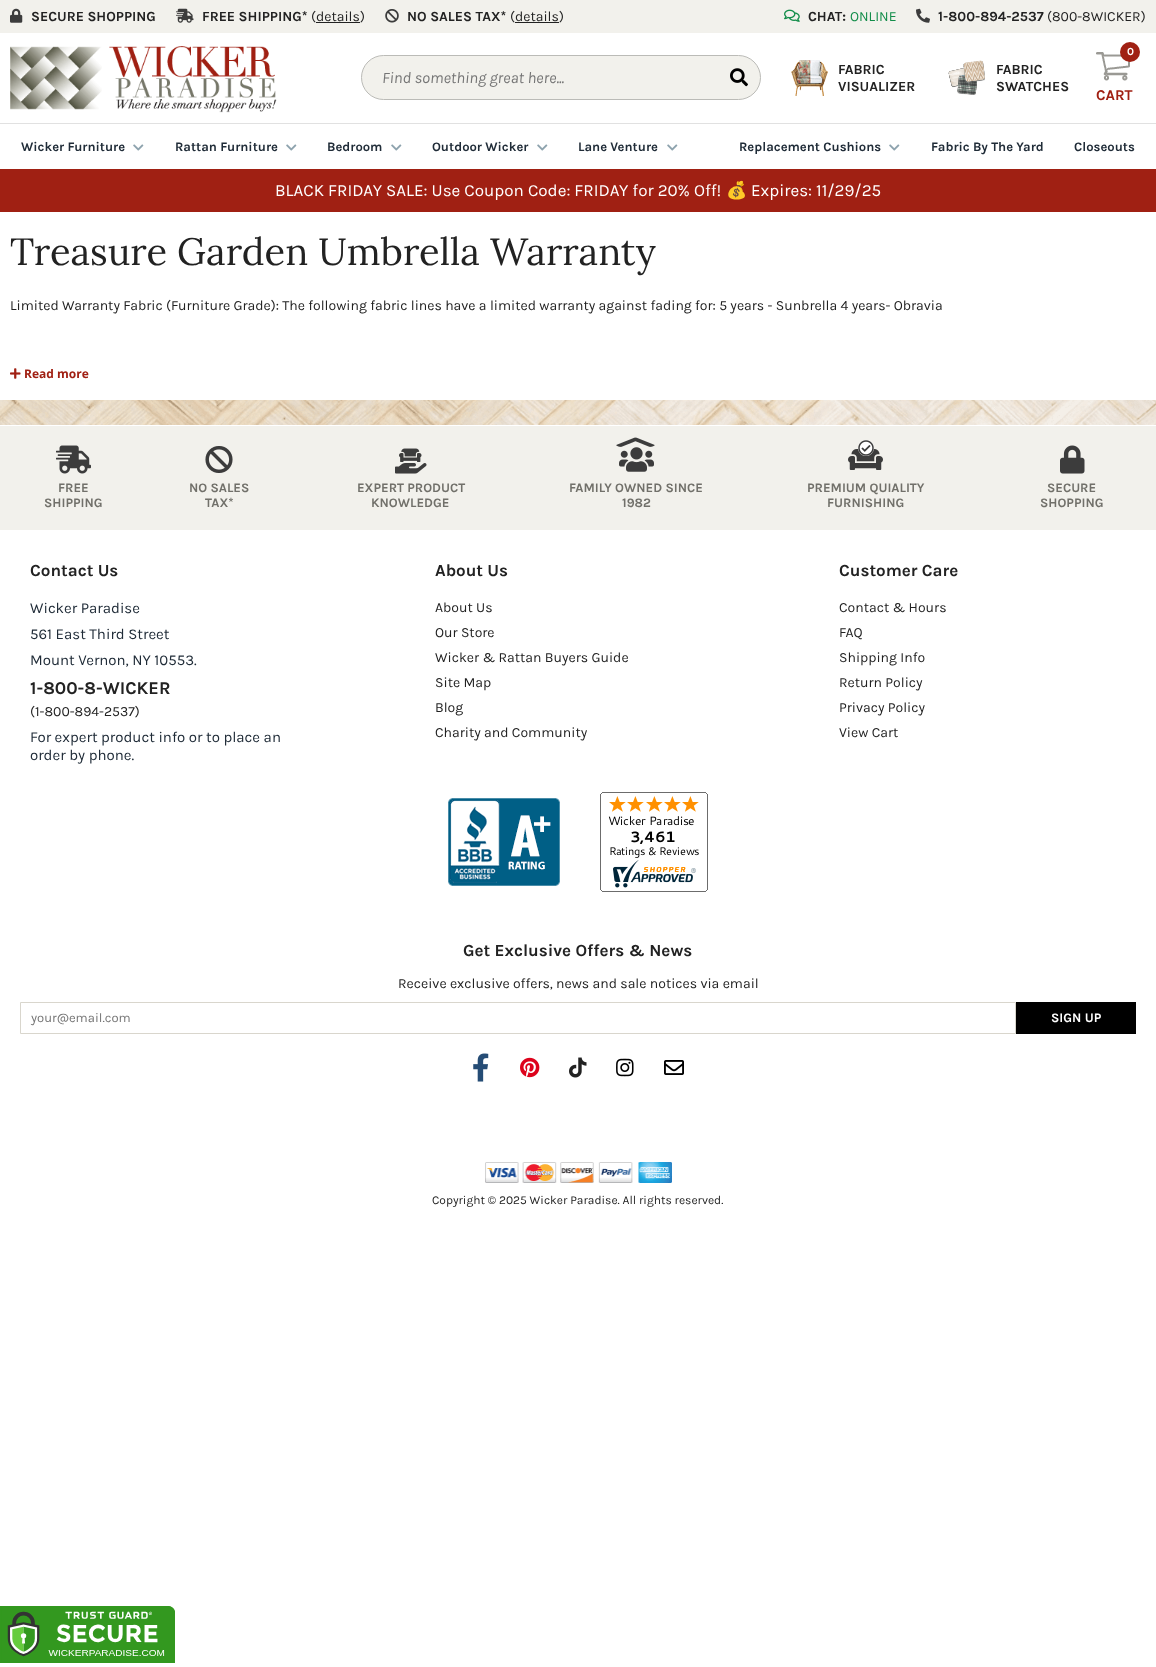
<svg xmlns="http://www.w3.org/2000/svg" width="1156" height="1667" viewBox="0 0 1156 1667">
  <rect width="100%" height="100%" fill="#fff"/>
  <path d="M0 0h1156v33H0z" fill="#f2f1ec"/>
  <image x="10" y="8" width="13" height="15" href="img/1.png"/>
  <image x="176" y="8" width="18" height="15" href="img/2.png"/>
  <path d="M316 22h44v1H316z" fill="#222"/>
  <image x="385" y="9" width="14" height="14" href="img/3.png"/>
  <path d="M515 22h44v1H515z" fill="#222"/>
  <image x="784" y="9" width="16" height="13" href="img/4.png"/>
  <image x="916" y="8" width="14" height="15" href="img/5.png"/>
  <image x="10" y="46" width="92" height="64" href="img/6.png"/>
  <image x="109" y="46" width="168" height="67" href="img/7.png"/>
  <rect x="361.5" y="55.5" width="399" height="44" rx="22" fill="#f2f1ec" stroke="#bbbbb7"/>
  <image x="730" y="68" width="18" height="19" href="img/8.png"/>
  <image x="791" y="60" width="37" height="36" href="img/9.png"/>
  <image x="948" y="60" width="37" height="35" href="img/10.png"/>
  <image x="1096" y="52" width="34" height="29" href="img/11.png"/>
  <circle cx="1130" cy="52" r="10" fill="#a02013"/>
  <path d="M0 123h1156v1H0z" fill="#e1e1e1"/>
  <image x="133" y="144" width="11" height="7" href="img/12.png"/>
  <image x="286" y="144" width="11" height="7" href="img/12.png"/>
  <image x="391" y="144" width="11" height="7" href="img/12.png"/>
  <image x="537" y="144" width="11" height="7" href="img/12.png"/>
  <image x="667" y="144" width="11" height="7" href="img/12.png"/>
  <image x="889" y="144" width="11" height="7" href="img/12.png"/>
  <path d="M0 169h1156v43H0z" fill="#a02013"/>
  <image x="12" y="345" width="1040" height="40" href="img/13.png"/>
  <image x="10" y="368" width="11" height="11" href="img/14.png"/>
  <image x="0" y="400" width="1156" height="25" href="img/15.png"/>
  <path d="M0 426h1156v104H0z" fill="#f2f1ec"/>
  <image x="56" y="445" width="35" height="29" href="img/16.png"/>
  <image x="205" y="446" width="28" height="27" href="img/17.png"/>
  <image x="399" y="448" width="23" height="14" href="img/18.png"/>
  <image x="395" y="463" width="32" height="11" href="img/19.png"/>
  <image x="616" y="437" width="39" height="10" href="img/20.png"/>
  <image x="619" y="447" width="35" height="25" href="img/21.png"/>
  <image x="848" y="449" width="35" height="21" href="img/23.png"/>
  <circle cx="866" cy="448" r="8" fill="#fff"/>
  <image x="858" y="440" width="16" height="16" href="img/22.png"/>
  <image x="1060" y="445" width="25" height="29" href="img/24.png"/>
  <image x="448" y="798" width="112" height="88" href="img/25.png"/>
  <image x="600" y="792" width="108" height="100" href="img/26.png"/>
  <path d="M20.5 1002.5h995v31H20.5z" fill="none" stroke="#d9d6cd"/>
  <path d="M1016 1002h120v32H1016z" fill="#000"/>
  <image x="473" y="1053" width="16" height="29" href="img/27.png"/>
  <image x="520" y="1057" width="20" height="21" href="img/28.png"/>
  <image x="569" y="1057" width="18" height="21" href="img/29.png"/>
  <image x="616" y="1058" width="18" height="19" href="img/30.png"/>
  <image x="664" y="1060" width="20" height="15" href="img/31.png"/>
  <image x="485" y="1162" width="187" height="21" href="img/32.png"/>
  <image x="0" y="1606" width="175" height="57" href="img/33.png"/>
  <g font-family="Karla" font-size="14" font-weight="bold" fill="#222">
    <text x="31" y="21">SECURE SHOPPING</text>
    <text x="202" y="21">FREE SHIPPING*</text>
  </g>
  <g font-family="Karla" font-size="14" fill="#222">
    <text x="311" y="21">(details</text>
    <text x="360" y="21">)</text>
  </g>
  <text x="407" y="21" font-family="Karla" font-size="14" font-weight="bold" fill="#222">NO SALES TAX*</text>
  <text x="510" y="21" font-family="Karla" font-size="14" fill="#222">(details)</text>
  <text x="808" y="21" font-family="Karla" font-size="14" font-weight="bold" fill="#222">CHAT:</text>
  <text x="850" y="21" font-family="Karla" font-size="14" fill="#138d4a">ONLINE</text>
  <text x="938" y="21" font-family="Karla" font-size="14" font-weight="bold" fill="#222">1-800-894-2537</text>
  <text x="1047" y="21" font-family="Karla" font-size="14" fill="#222">(800-8WICKER)</text>
  <text x="382" y="83" font-family="Karla" font-size="16" font-style="italic" fill="#757575">Find something great here...</text>
  <g font-family="Karla" font-size="14" font-weight="bold" fill="#222">
    <text x="838" y="74">FABRIC</text>
    <text x="838" y="91">VISUALIZER</text>
    <text x="996" y="74">FABRIC</text>
    <text x="996" y="91">SWATCHES</text>
  </g>
  <text x="1127" y="55" font-family="Karla" font-size="11" font-weight="bold" fill="#fff">0</text>
  <text x="1096" y="100" font-family="Karla" font-size="15" font-weight="bold" fill="#a02013">CART</text>
  <g font-family="Karla" font-size="13" font-weight="bold" fill="#202c38">
    <text x="21" y="151">Wicker Furniture</text>
    <text x="175" y="151">Rattan Furniture</text>
    <text x="327" y="151">Bedroom</text>
    <text x="432" y="151">Outdoor Wicker</text>
    <text x="578" y="151">Lane Venture</text>
    <text x="739" y="151">Replacement Cushions</text>
    <text x="931" y="151">Fabric By The Yard</text>
    <text x="1074" y="151">Closeouts</text>
  </g>
  <text x="275" y="196" font-family="Karla" font-size="17" fill="#fff">BLACK FRIDAY SALE: Use Coupon Code: FRIDAY for 20% Off!</text>
  <text x="726" y="196" font-family="Noto Color Emoji" font-size="17" fill="#fff">💰</text>
  <text x="751" y="196" font-family="Karla" font-size="17" fill="#fff">Expires: 11/29/25</text>
  <text x="10" y="265" font-family="Lora" font-size="38" fill="#222">Treasure Garden Umbrella Warranty</text>
  <text x="10" y="310" font-family="Karla" font-size="14" fill="#222">Limited Warranty Fabric (Furniture Grade): The following fabric lines have a limited warranty against fading for: 5 years - Sunbrella 4 years- Obravia</text>
  <text x="24" y="378" font-family="Open Sans" font-size="12" font-weight="bold" fill="#a02013">Read more</text>
  <g font-family="Karla" font-size="13" font-weight="bold" fill="#71706a">
    <text x="58" y="492">FREE</text>
    <text x="44" y="507">SHIPPING</text>
    <text x="189" y="492">NO SALES</text>
    <text x="205" y="507">TAX*</text>
    <text x="357" y="492">EXPERT PRODUCT</text>
    <text x="371" y="507">KNOWLEDGE</text>
    <text x="569" y="492">FAMILY OWNED SINCE</text>
    <text x="622" y="507">1982</text>
    <text x="807" y="492">PREMIUM QUIALITY</text>
    <text x="827" y="507">FURNISHING</text>
    <text x="1047" y="492">SECURE</text>
    <text x="1040" y="507">SHOPPING</text>
  </g>
  <text x="30" y="576" font-family="Karla" font-size="17" font-weight="bold" fill="#222">Contact Us</text>
  <g font-family="Karla" font-size="15" fill="#202c38">
    <text x="30" y="613">Wicker Paradise</text>
    <text x="30" y="639">561 East Third Street</text>
    <text x="30" y="665">Mount Vernon, NY 10553.</text>
  </g>
  <text x="30" y="694" font-family="Karla" font-size="18" font-weight="bold" fill="#222">1-800-8-WICKER</text>
  <text x="30" y="716" font-family="Karla" font-size="14" fill="#222">(1-800-894-2537)</text>
  <g font-family="Karla" font-size="15" fill="#202c38">
    <text x="30" y="742">For expert product info or to place an</text>
    <text x="30" y="760">order by phone.</text>
  </g>
  <text x="435" y="576" font-family="Karla" font-size="17" font-weight="bold" fill="#222">About Us</text>
  <g font-family="Karla" font-size="14" fill="#222">
    <text x="435" y="612">About Us</text>
    <text x="435" y="637">Our Store</text>
    <text x="435" y="662">Wicker &amp; Rattan Buyers Guide</text>
    <text x="435" y="687">Site Map</text>
    <text x="435" y="712">Blog</text>
    <text x="435" y="737">Charity and Community</text>
  </g>
  <text x="839" y="576" font-family="Karla" font-size="17" font-weight="bold" fill="#222">Customer Care</text>
  <g font-family="Karla" font-size="14" fill="#222">
    <text x="839" y="612">Contact &amp; Hours</text>
    <text x="839" y="637">FAQ</text>
    <text x="839" y="662">Shipping Info</text>
    <text x="839" y="687">Return Policy</text>
    <text x="839" y="712">Privacy Policy</text>
    <text x="839" y="737">View Cart</text>
  </g>
  <text x="463" y="956" font-family="Karla" font-size="17" font-weight="bold" fill="#222">Get Exclusive Offers &amp; News</text>
  <text x="398" y="988" font-family="Karla" font-size="14" fill="#222">Receive exclusive offers, news and sale notices via email</text>
  <text x="31" y="1022" font-family="Karla" font-size="13" fill="#757575">your@email.com</text>
  <text x="1051" y="1022" font-family="Karla" font-size="13" font-weight="bold" fill="#fff">SIGN UP</text>
  <text x="432" y="1204" font-family="Karla" font-size="12" fill="#222">Copyright © 2025 Wicker Paradise. All rights reserved.</text>
</svg>
